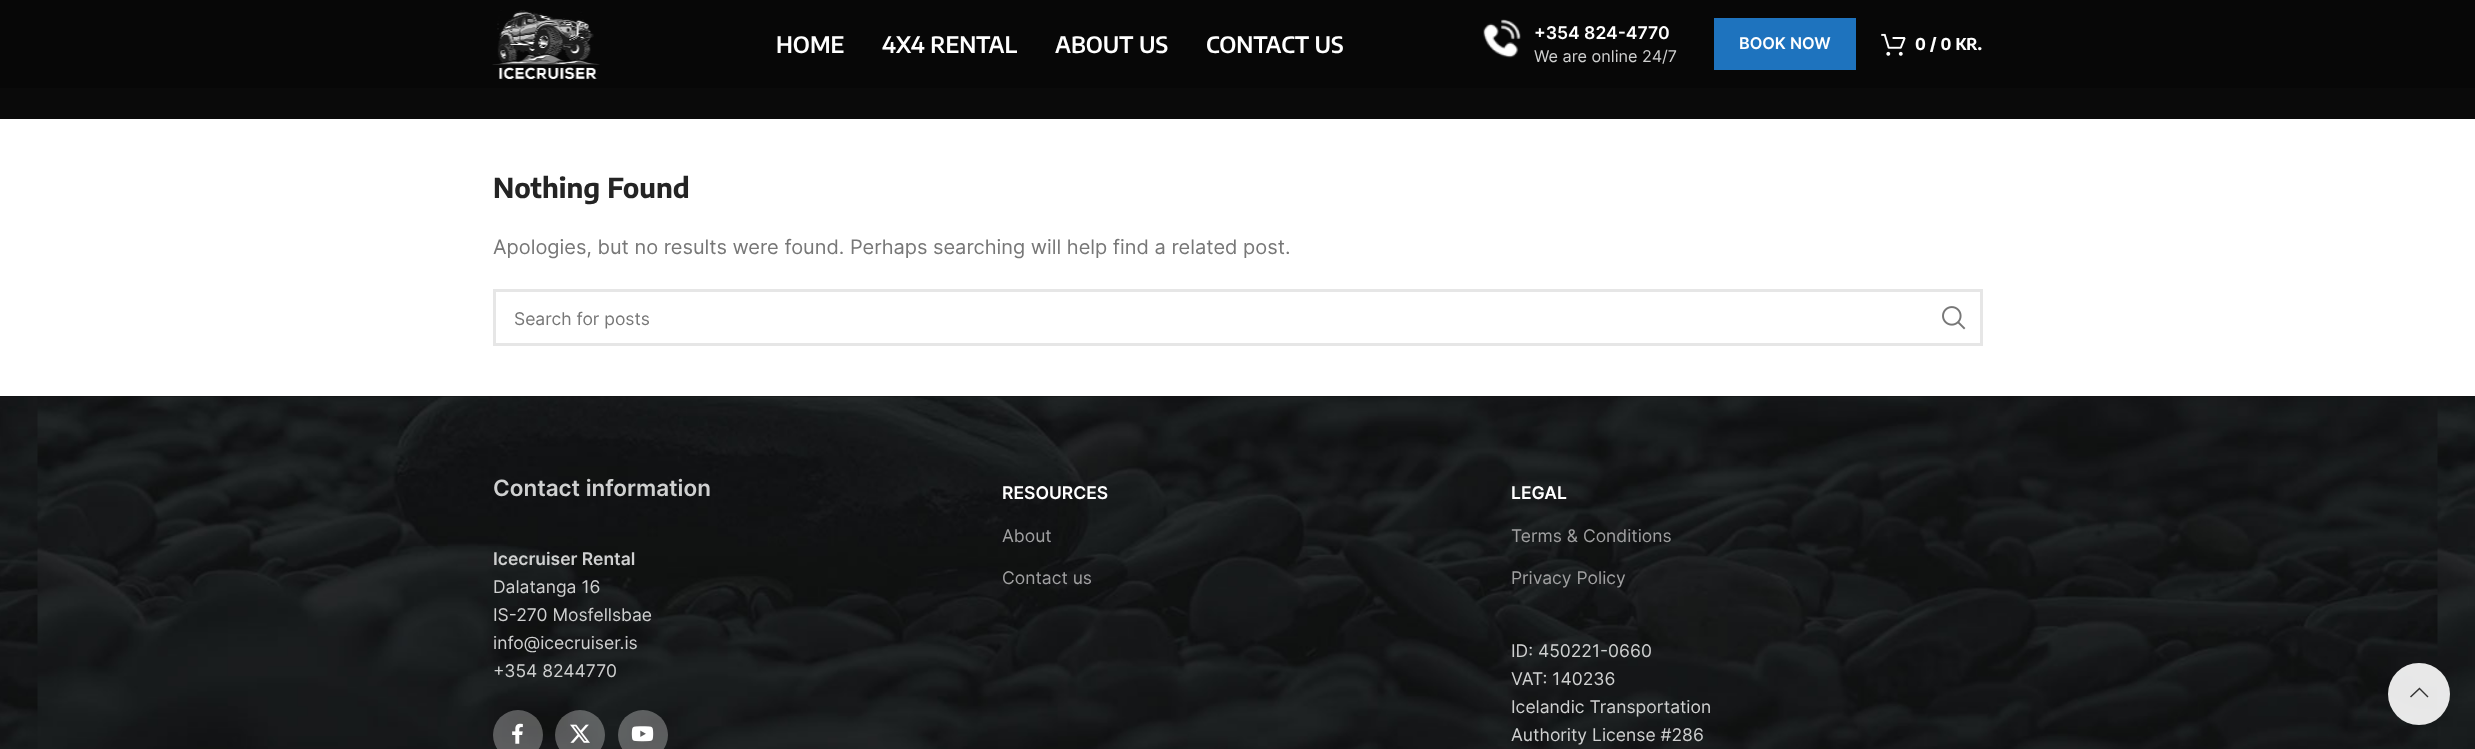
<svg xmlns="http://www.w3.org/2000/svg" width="2475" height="749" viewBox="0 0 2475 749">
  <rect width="100%" height="100%" fill="#fff"/>
  <path d="M0 0h2475v88H0z" fill="#070707"/>
  <image x="492" y="10" width="108" height="69" href="img/1.png"/>
  <image x="1483" y="19" width="38" height="39" href="img/2.png"/>
  <path d="M1714 18h142v52H1714z" fill="#1e73be"/>
  <image x="1881" y="33" width="25" height="23" href="img/3.png"/>
  <path d="M0 88h2475v31H0z" fill="#0a0a0a"/>
  <path d="M494.5 290.5h1487v54H494.5z" fill="none" stroke="#e6e6e6" stroke-width="3"/>
  <image x="1942" y="306" width="24" height="24" href="img/4.png"/>
  <path d="M0 396h2475v1H0z" fill="#111"/>
  <image x="0" y="396" width="2475" height="353" href="img/5.png"/>
  <circle cx="518" cy="735" r="25" fill="#ffffff4d"/>
  <image x="512" y="723" width="11" height="21" href="img/6.png"/>
  <circle cx="580" cy="735" r="25" fill="#ffffff4d"/>
  <image x="570" y="724" width="20" height="19" href="img/7.png"/>
  <circle cx="643" cy="735" r="25" fill="#ffffff4d"/>
  <image x="631" y="726" width="23" height="16" href="img/8.png"/>
  <circle cx="2419" cy="694" r="31" fill="#ffffffe6"/>
  <path d="M2427.5 697.5L2428.5 696.5L2419.5 687.5L2410 696.5L2411 697.5L2419.5 689.5Z" fill="#333"/>
  <g font-family="Encode Sans Condensed" font-size="22.5" font-weight="600" fill="#fff">
    <text x="776" y="53">HOME</text>
    <text x="882" y="53">4X4 RENTAL</text>
    <text x="1055" y="53">ABOUT US</text>
    <text x="1206" y="53">CONTACT US</text>
  </g>
  <text x="1534" y="39" font-family="Inter" font-size="17.5" font-weight="600" fill="#fff">+354 824-4770</text>
  <text x="1534" y="62" font-family="Inter" font-size="16.25" fill="#cfd0d0">We are online 24/7</text>
  <text x="1739" y="49" font-family="Inter" font-size="16.25" font-weight="600" fill="#fff">BOOK NOW</text>
  <text x="1915" y="50" font-family="Encode Sans Condensed" font-size="16.25" font-weight="bold" fill="#fff">0 / 0 KR.</text>
  <text x="493" y="198" font-family="Encode Sans Condensed" font-size="27.5" font-weight="bold" fill="#242424">Nothing Found</text>
  <text x="493" y="254" font-family="Inter" font-size="20" fill="#777">Apologies, but no results were found. Perhaps searching will help find a related post.</text>
  <text x="514" y="325" font-family="Inter" font-size="17.5" fill="#777">Search for posts</text>
  <text x="493" y="496" font-family="Inter" font-size="22.5" font-weight="600" fill="#cfd0d0">Contact information</text>
  <text x="493" y="565" font-family="Inter" font-size="17.5" font-weight="600" fill="#cfd0d0">Icecruiser Rental</text>
  <g font-family="Inter" font-size="17.5" fill="#cfd0d0">
    <text x="493" y="593">Dalatanga 16</text>
    <text x="493" y="621">IS-270 Mosfellsbae</text>
    <text x="493" y="649">info@icecruiser.is</text>
    <text x="493" y="677">+354 8244770</text>
  </g>
  <text x="1002" y="499" font-family="Inter" font-size="17.5" font-weight="600" fill="#fff">RESOURCES</text>
  <g font-family="Inter" font-size="17.5" fill="#a0a0a1">
    <text x="1002" y="542">About</text>
    <text x="1002" y="584">Contact us</text>
  </g>
  <text x="1511" y="499" font-family="Inter" font-size="17.5" font-weight="600" fill="#fff">LEGAL</text>
  <g font-family="Inter" font-size="17.5" fill="#a0a0a1">
    <text x="1511" y="542">Terms &amp; Conditions</text>
    <text x="1511" y="584">Privacy Policy</text>
  </g>
  <g font-family="Inter" font-size="17.5" fill="#cfd0d0">
    <text x="1511" y="657">ID: 450221-0660</text>
    <text x="1511" y="685">VAT: 140236</text>
    <text x="1511" y="713">Icelandic Transportation</text>
    <text x="1511" y="741">Authority License #286</text>
  </g>
</svg>
